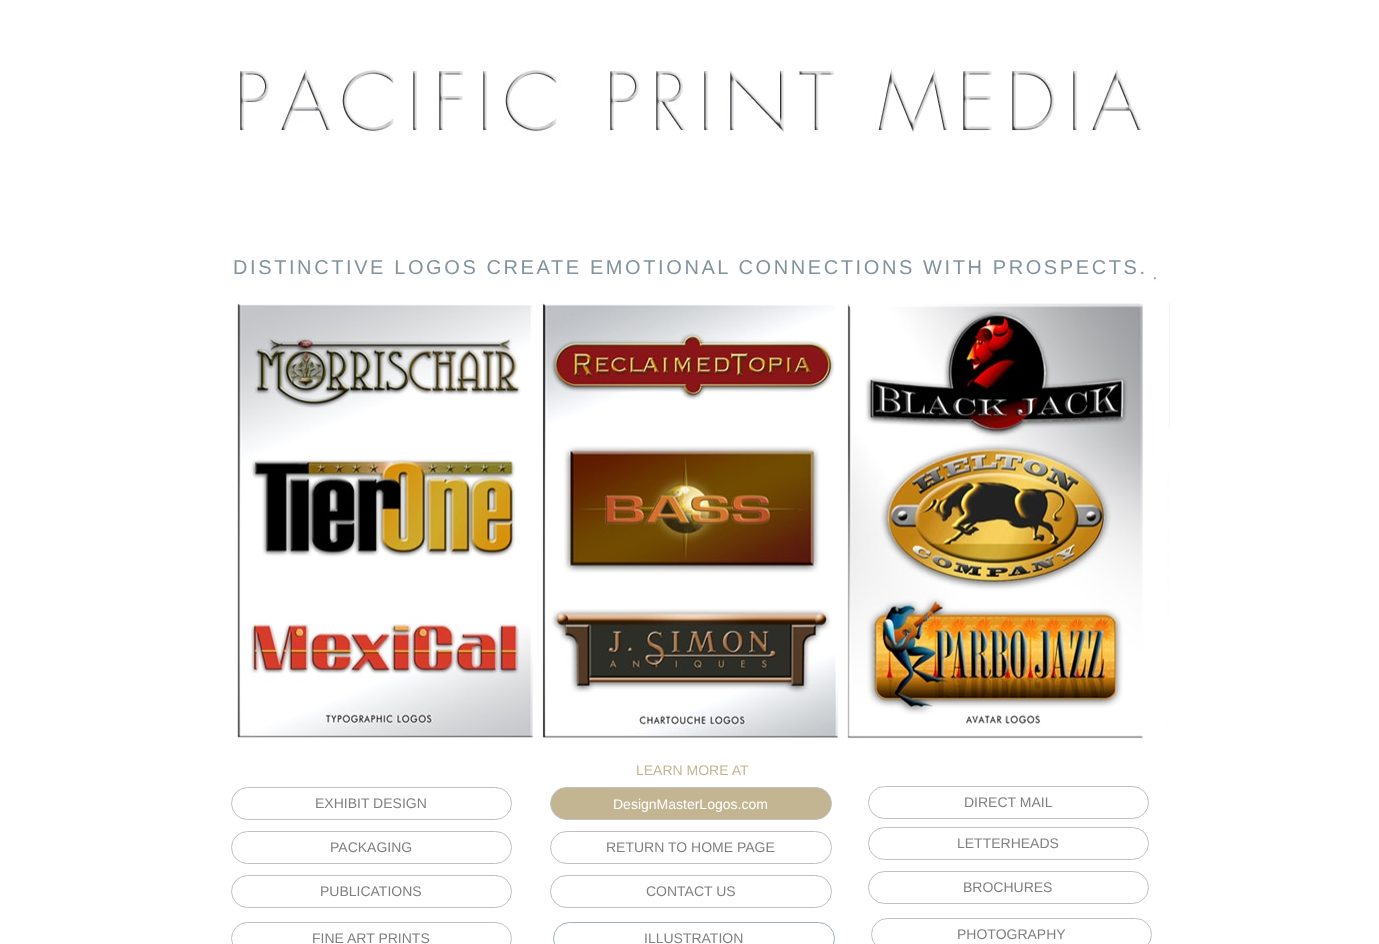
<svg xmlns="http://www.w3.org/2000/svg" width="1379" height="944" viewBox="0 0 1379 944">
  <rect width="100%" height="100%" fill="#fff"/>
  <image x="234" y="66" width="936" height="829" href="img/1.png"/>
  <path d="M234 258h917v24H234z" fill="#fff"/>
  <path d="M234 754h912v24H234z" fill="#fff"/>
  <path d="M354 810h653v85H354z" fill="#fff"/>
  <rect x="231.5" y="787.5" width="280" height="32" rx="16" fill="none" stroke="#c0c0c0"/>
  <rect x="231.5" y="831.5" width="280" height="32" rx="16" fill="none" stroke="#c0c0c0"/>
  <rect x="231.5" y="875.5" width="280" height="32" rx="16" fill="none" stroke="#c0c0c0"/>
  <rect x="550.5" y="787.5" width="281" height="32" rx="16" fill="#c3b591" stroke="#c0c0c0"/>
  <rect x="550.5" y="831.5" width="281" height="32" rx="16" fill="none" stroke="#c0c0c0"/>
  <rect x="550.5" y="875.5" width="281" height="32" rx="16" fill="none" stroke="#c0c0c0"/>
  <rect x="868.5" y="786.5" width="280" height="32" rx="16" fill="none" stroke="#c0c0c0"/>
  <rect x="868.5" y="827.5" width="280" height="32" rx="16" fill="none" stroke="#c0c0c0"/>
  <rect x="868.5" y="871.5" width="280" height="32" rx="16" fill="none" stroke="#c0c0c0"/>
  <rect x="231.5" y="922.5" width="280" height="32" rx="16" fill="none" stroke="#c0c0c0"/>
  <rect x="553.5" y="922.5" width="281" height="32" rx="16" fill="none" stroke="#9eafb9"/>
  <rect x="871.5" y="918.5" width="280" height="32" rx="16" fill="none" stroke="#c0c0c0"/>
  <text x="233" y="274" font-family="Liberation Sans" font-size="20" letter-spacing="2.6" fill="#82939e">DISTINCTIVE LOGOS CREATE EMOTIONAL CONNECTIONS WITH PROSPECTS.</text>
  <text x="636" y="775" font-family="Liberation Sans" font-size="14" fill="#c3b591">LEARN MORE AT</text>
  <g font-family="Liberation Sans" font-size="14" fill="#808080">
    <text x="315" y="808">EXHIBIT DESIGN</text>
    <text x="330" y="852">PACKAGING</text>
    <text x="320" y="896">PUBLICATIONS</text>
  </g>
  <text x="613" y="809" font-family="Liberation Sans" font-size="14" fill="#fff">DesignMasterLogos.com</text>
  <g font-family="Liberation Sans" font-size="14" fill="#808080">
    <text x="606" y="852">RETURN TO HOME PAGE</text>
    <text x="646" y="896">CONTACT US</text>
    <text x="964" y="807">DIRECT MAIL</text>
    <text x="957" y="848">LETTERHEADS</text>
    <text x="963" y="892">BROCHURES</text>
    <text x="312" y="943">FINE ART PRINTS</text>
    <text x="644" y="943">ILLUSTRATION</text>
    <text x="957" y="939">PHOTOGRAPHY</text>
  </g>
</svg>
